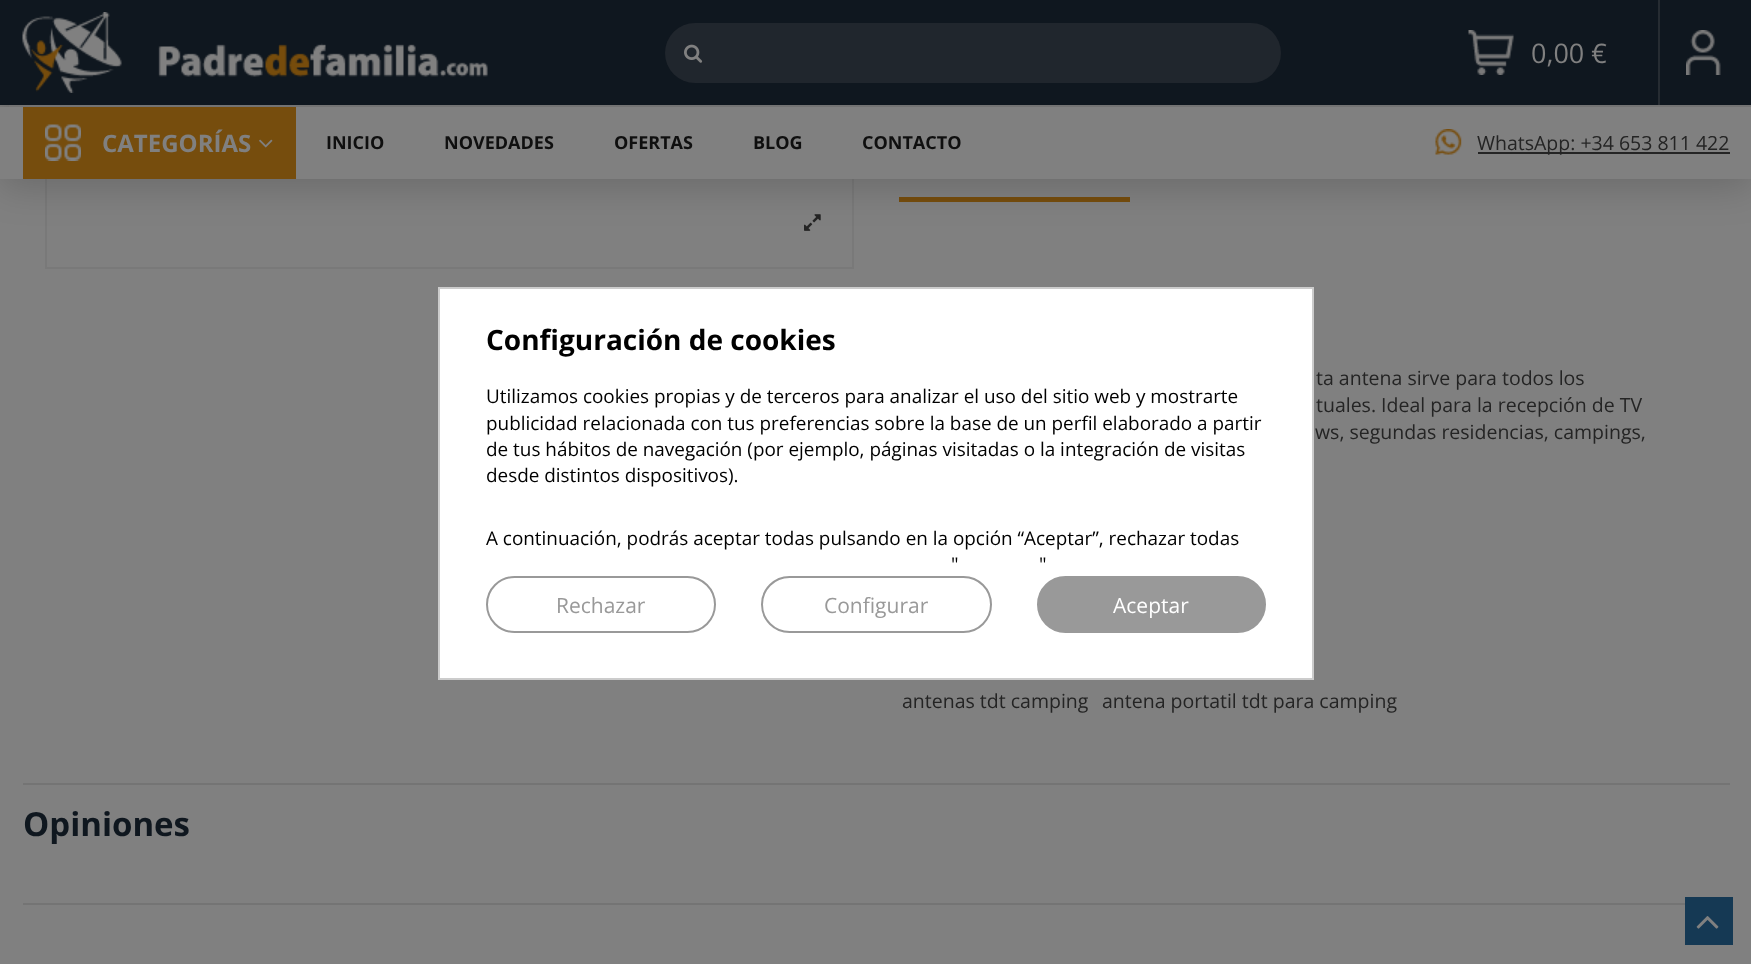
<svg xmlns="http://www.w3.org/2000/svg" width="1751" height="964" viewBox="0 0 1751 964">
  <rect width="100%" height="100%" fill="#808080"/>
  <path d="M46 -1h807v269H46z" fill="none" stroke="#797979" stroke-width="2"/>
  <image x="804" y="214" width="17" height="17" href="img/8.png"/>
  <path d="M899 197h231v5H899z" fill="#764d0d"/>
  <path d="M0 8h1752v178H0z" fill="#0000002e" filter="blur(19px)"/>
  <path d="M0 0h1751v105H0z" fill="#0f171f"/>
  <image x="22" y="12" width="466" height="81" href="img/1.png"/>
  <rect x="665" y="23" width="616" height="60" rx="30" fill="#20262d"/>
  <image x="684" y="44" width="19" height="19" href="img/2.png"/>
  <image x="1468" y="30" width="46" height="45" href="img/3.png"/>
  <path d="M1658 0h2v105H1658z" fill="#262c32"/>
  <image x="1686" y="30" width="35" height="45" href="img/4.png"/>
  <path d="M0 107h1751v72H0z" fill="#808080"/>
  <path d="M9 105h1742v2H9z" fill="#737373"/>
  <path d="M23 107h273v72H23z" fill="#764d0d"/>
  <image x="45" y="124" width="36" height="37" href="img/5.png"/>
  <image x="259" y="139" width="14" height="9" href="img/6.png"/>
  <image x="1435" y="129" width="27" height="26" href="img/7.png"/>
  <path d="M1478 152h252v2H1478z" fill="#242424"/>
  <path d="M23 783h1707v2H23z" fill="#747474"/>
  <path d="M23 903h1662v2H23z" fill="#747474"/>
  <path d="M439 288h874v391H439z" fill="#fff" stroke="#ccc" stroke-width="2"/>
  <rect x="487" y="577" width="228" height="55" rx="27.5" fill="none" stroke="#999" stroke-width="2"/>
  <rect x="762" y="577" width="229" height="55" rx="27.5" fill="none" stroke="#999" stroke-width="2"/>
  <rect x="1038" y="577" width="227" height="55" rx="27.5" fill="#999" stroke="#999" stroke-width="2"/>
  <path d="M1685 897h48v48H1685z" fill="#153954"/>
  <image x="1696" y="916" width="23" height="13" href="img/9.png"/>
  <text x="1531" y="63" font-family="Open Sans" font-size="27" fill="#808080">0,00 €</text>
  <text x="102" y="152" font-family="Open Sans" font-size="24" font-weight="bold" fill="#808080">CATEGORÍAS</text>
  <g font-family="Open Sans" font-size="18" font-weight="bold" fill="#0f0f0f">
    <text x="326" y="149">INICIO</text>
    <text x="444" y="149">NOVEDADES</text>
    <text x="614" y="149">OFERTAS</text>
    <text x="753" y="149">BLOG</text>
    <text x="862" y="149">CONTACTO</text>
  </g>
  <g font-family="Open Sans" font-size="19.5" fill="#242424">
    <text x="1477" y="150">WhatsApp: +34 653 811 422</text>
    <text x="1316" y="385">ta antena sirve para todos los</text>
    <text x="1316" y="412">tuales. Ideal para la recepción de TV</text>
    <text x="1315" y="439">ws, segundas residencias, campings,</text>
    <text x="902" y="708">antenas tdt camping</text>
    <text x="1102" y="708">antena portatil tdt para camping</text>
  </g>
  <text x="23" y="836" font-family="Open Sans" font-size="33" font-weight="bold" fill="#0f171f">Opiniones</text>
  <text x="486" y="350" font-family="Open Sans" font-size="28" font-weight="bold" fill="#000">Configuración de cookies</text>
  <g font-family="Open Sans" font-size="18.9" fill="#000">
    <text x="486" y="403">Utilizamos cookies propias y de terceros para analizar el uso del sitio web y mostrarte</text>
    <text x="486" y="430">publicidad relacionada con tus preferencias sobre la base de un perfil elaborado a partir</text>
    <text x="486" y="456">de tus hábitos de navegación (por ejemplo, páginas visitadas o la integración de visitas</text>
    <text x="486" y="482">desde distintos dispositivos).</text>
    <text x="486" y="545">A continuación, podrás aceptar todas pulsando en la opción “Aceptar”, rechazar todas</text>
    <text x="951" y="571">"</text>
    <text x="1039" y="571">"</text>
  </g>
  <g font-family="Open Sans" font-size="21" fill="#999">
    <text x="556" y="613">Rechazar</text>
    <text x="824" y="613">Configurar</text>
  </g>
  <text x="1113" y="613" font-family="Open Sans" font-size="21" fill="#fff">Aceptar</text>
</svg>
